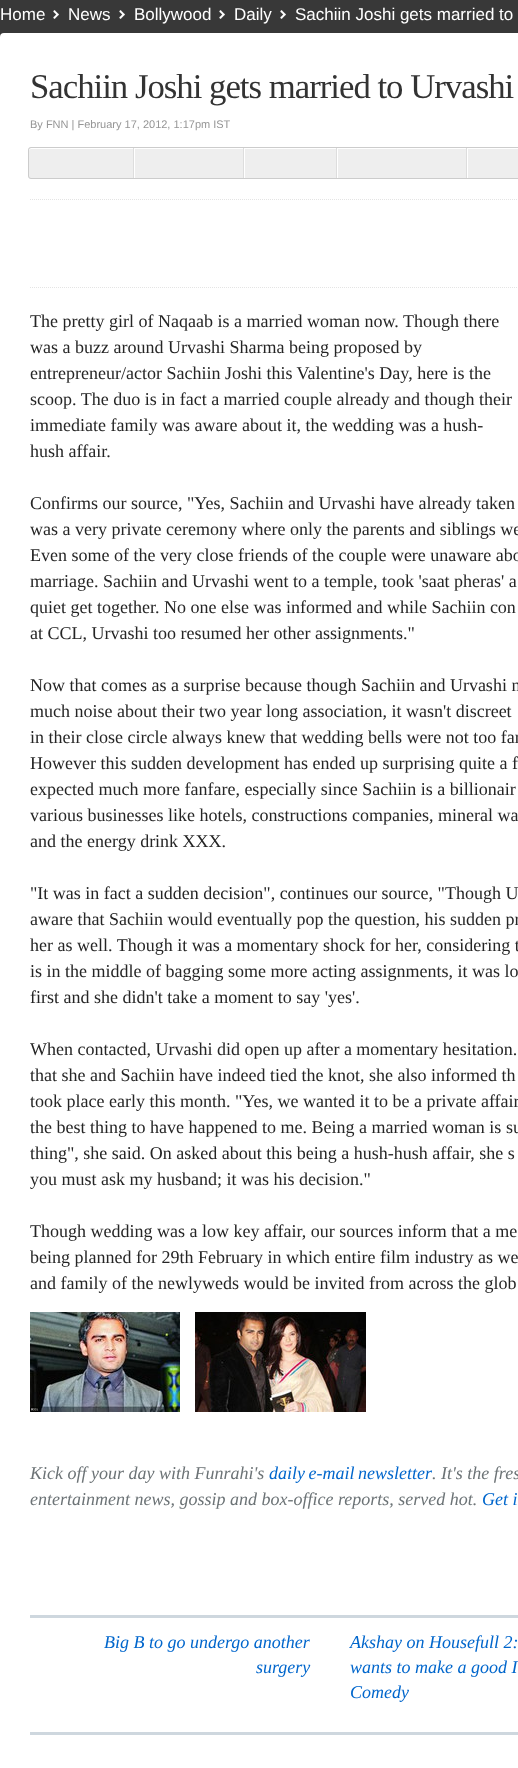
<svg xmlns="http://www.w3.org/2000/svg" width="518" height="1768" viewBox="0 0 518 1768">
  <rect width="100%" height="100%" fill="#383838"/>
  <image x="53" y="10" width="6" height="9" href="img/1.png"/>
  <image x="119" y="10" width="6" height="9" href="img/1.png"/>
  <image x="219" y="10" width="6" height="9" href="img/1.png"/>
  <image x="280" y="10" width="6" height="9" href="img/1.png"/>
  <rect y="33" width="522" height="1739" rx="4" fill="#fff"/>
  <rect x="28" y="147" width="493" height="32" rx="3" fill="#eee"/>
  <path d="M31 149H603C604 149 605 150 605 151C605 150 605 148 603 148H31L29 149V151C29 150 30 149 31 149Z" fill="#fff"/>
  <rect x="28.5" y="147.5" width="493" height="31" rx="2.5" fill="none" stroke="#ccc"/>
  <path d="M134 148h1v30H134z" fill="#fff"/>
  <path d="M133 148h1v30H133z" fill="#ddd"/>
  <path d="M244 148h1v30H244z" fill="#fff"/>
  <path d="M243 148h1v30H243z" fill="#ddd"/>
  <path d="M337 148h1v30H337z" fill="#fff"/>
  <path d="M336 148h1v30H336z" fill="#ddd"/>
  <path d="M467 148h1v30H467z" fill="#fff"/>
  <path d="M466 148h1v30H466z" fill="#ddd"/>
  <path d="M30 199.5H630" fill="none" stroke="#e4e4e4" stroke-dasharray="1 1"/>
  <path d="M30 287.5H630" fill="none" stroke="#e4e4e4" stroke-dasharray="1 1"/>
  <image x="30" y="1312" width="150" height="100" href="img/2.png"/>
  <image x="195" y="1312" width="171" height="100" href="img/3.png"/>
  <path d="M30 1615h488v3H30z" fill="#ced7de"/>
  <path d="M30 1732h488v3H30z" fill="#ced7de"/>
  <g font-family="Liberation Sans" font-size="17" fill="#fff">
    <text x="0" y="20">Home</text>
    <text x="68" y="20">News</text>
    <text x="134" y="20">Bollywood</text>
    <text x="234" y="20">Daily</text>
    <text x="295" y="20">Sachiin Joshi gets married to</text>
  </g>
  <text x="30" y="98" font-family="Liberation Serif" font-size="34.75" letter-spacing="-1" fill="#333">Sachiin Joshi gets married to Urvashi</text>
  <text x="30" y="128" font-family="Liberation Sans" font-size="11" fill="#959595">By FNN | February 17, 2012, 1:17pm IST</text>
  <g font-family="Liberation Serif" font-size="18" fill="#252525">
    <text x="30" y="327">The pretty girl of Naqaab is a married woman now. Though there</text>
    <text x="30" y="353">was a buzz around Urvashi Sharma being proposed by</text>
    <text x="30" y="379">entrepreneur/actor Sachiin Joshi this Valentine's Day, here is the</text>
    <text x="30" y="405">scoop. The duo is in fact a married couple already and though their</text>
    <text x="30" y="431">immediate family was aware about it, the wedding was a hush-</text>
    <text x="30" y="457">hush affair.</text>
    <text x="30" y="509">Confirms our source, "Yes, Sachiin and Urvashi have already taken</text>
    <text x="30" y="535">was a very private ceremony where only the parents and siblings we</text>
    <text x="30" y="561">Even some of the very close friends of the couple were unaware abo</text>
    <text x="30" y="587">marriage. Sachiin and Urvashi went to a temple, took 'saat pheras' a</text>
    <text x="30" y="613">quiet get together. No one else was informed and while Sachiin con</text>
    <text x="30" y="639">at CCL, Urvashi too resumed her other assignments."</text>
    <text x="30" y="691">Now that comes as a surprise because though Sachiin and Urvashi n</text>
    <text x="30" y="717">much noise about their two year long association, it wasn't discreet</text>
    <text x="30" y="743">in their close circle always knew that wedding bells were not too far</text>
    <text x="30" y="769">However this sudden development has ended up surprising quite a f</text>
    <text x="30" y="795">expected much more fanfare, especially since Sachiin is a billionair</text>
    <text x="30" y="821">various businesses like hotels, constructions companies, mineral wa</text>
    <text x="30" y="847">and the energy drink XXX.</text>
    <text x="30" y="899">"It was in fact a sudden decision", continues our source, "Though U</text>
    <text x="30" y="925">aware that Sachiin would eventually pop the question, his sudden pr</text>
    <text x="30" y="951">her as well. Though it was a momentary shock for her, considering t</text>
    <text x="30" y="977">is in the middle of bagging some more acting assignments, it was lo</text>
    <text x="30" y="1003">first and she didn't take a moment to say 'yes'.</text>
    <text x="30" y="1055">When contacted, Urvashi did open up after a momentary hesitation.</text>
    <text x="30" y="1081">that she and Sachiin have indeed tied the knot, she also informed th</text>
    <text x="30" y="1107">took place early this month. "Yes, we wanted it to be a private affair</text>
    <text x="30" y="1133">the best thing to have happened to me. Being a married woman is su</text>
    <text x="30" y="1159">thing", she said. On asked about this being a hush-hush affair, she s</text>
    <text x="30" y="1185">you must ask my husband; it was his decision."</text>
    <text x="30" y="1237">Though wedding was a low key affair, our sources inform that a me</text>
    <text x="30" y="1263">being planned for 29th February in which entire film industry as we</text>
    <text x="30" y="1289">and family of the newlyweds would be invited from across the glob</text>
  </g>
  <text x="30" y="1479" font-family="Liberation Serif" font-size="18" font-style="italic" fill="#6c7376">Kick off your day with Funrahi's</text>
  <text x="269" y="1479" word-spacing="-1" font-family="Liberation Serif" font-size="18" font-style="italic" fill="#06c">daily e-mail newsletter</text>
  <g font-family="Liberation Serif" font-size="18" font-style="italic" fill="#6c7376">
    <text x="432" y="1479">. It's the fres</text>
    <text x="30" y="1505">entertainment news, gossip and box-office reports, served hot.</text>
  </g>
  <g font-family="Liberation Serif" font-size="18" font-style="italic" fill="#06c">
    <text x="482" y="1505">Get i</text>
    <text x="104" y="1648">Big B to go undergo another</text>
    <text x="256" y="1673">surgery</text>
    <text x="350" y="1648">Akshay on Housefull 2:</text>
    <text x="350" y="1673">wants to make a good I</text>
    <text x="350" y="1698">Comedy</text>
  </g>
</svg>
